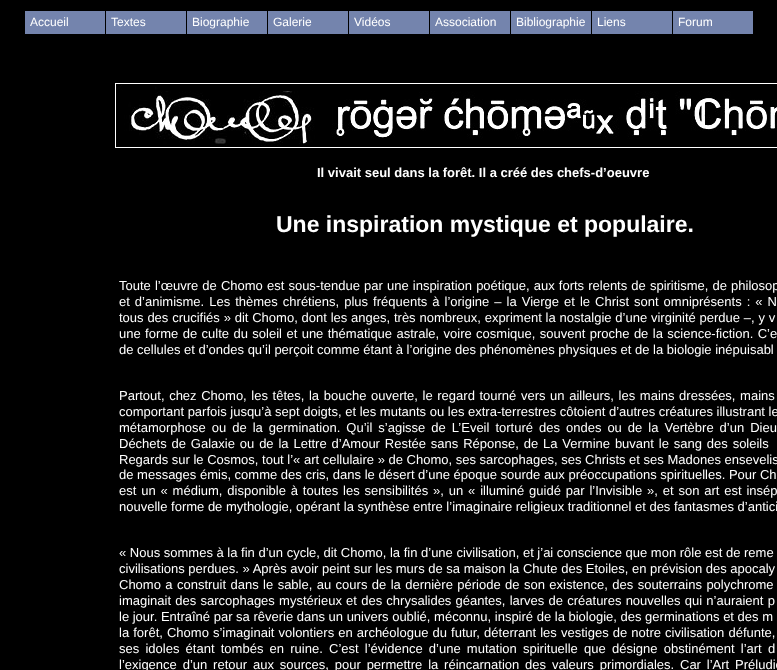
<svg xmlns="http://www.w3.org/2000/svg" width="777" height="670" viewBox="0 0 777 670">
  <rect width="100%" height="100%" fill="#000"/>
  <path d="M25 11h80v23H25z" fill="#7484ad"/>
  <path d="M106 11h80v23H106z" fill="#7484ad"/>
  <path d="M187 11h80v23H187z" fill="#7484ad"/>
  <path d="M268 11h80v23H268z" fill="#7484ad"/>
  <path d="M349 11h80v23H349z" fill="#7484ad"/>
  <path d="M430 11h80v23H430z" fill="#7484ad"/>
  <path d="M511 11h80v23H511z" fill="#7484ad"/>
  <path d="M592 11h80v23H592z" fill="#7484ad"/>
  <path d="M673 11h80v23H673z" fill="#7484ad"/>
  <image x="115" y="83" width="662" height="65" href="img/1.png"/>
  <g font-family="Liberation Sans" font-size="12" fill="#fff">
    <text x="30" y="26">Accueil</text>
    <text x="111" y="26">Textes</text>
    <text x="192" y="26">Biographie</text>
    <text x="273" y="26">Galerie</text>
    <text x="354" y="26">Vidéos</text>
    <text x="435" y="26">Association</text>
    <text x="516" y="26">Bibliographie</text>
    <text x="597" y="26">Liens</text>
    <text x="678" y="26">Forum</text>
  </g>
  <text x="317" y="177" font-family="Liberation Sans" font-size="13" font-weight="bold" fill="#fff">Il vivait seul dans la forêt. Il a créé des chefs-d’oeuvre</text>
  <text x="276" y="232" font-family="Liberation Sans" font-size="23" font-weight="bold" fill="#fff">Une inspiration mystique et populaire.</text>
  <g font-family="Liberation Sans" font-size="13" fill="#fff">
    <text x="119" y="290" word-spacing="0.5">Toute l’œuvre de Chomo est sous-tendue par une inspiration poétique, aux forts relents de spiritisme, de philosop</text>
    <text x="119" y="306" word-spacing="1.4">et d’animisme. Les thèmes chrétiens, plus fréquents à l’origine – la Vierge et le Christ sont omniprésents : « N</text>
    <text x="119" y="322" word-spacing="0.2">tous des crucifiés » dit Chomo, dont les anges, très nombreux, expriment la nostalgie d’une virginité perdue –, y v</text>
    <text x="119" y="338" word-spacing="0.8">une forme de culte du soleil et une thématique astrale, voire cosmique, souvent proche de la science-fiction. C’e</text>
    <text x="119" y="354">de cellules et d’ondes qu’il perçoit comme étant à l’origine des phénomènes physiques et de la biologie inépuisabl</text>
    <text x="119" y="400" word-spacing="1">Partout, chez Chomo, les têtes, la bouche ouverte, le regard tourné vers un ailleurs, les mains dressées, mains</text>
    <text x="119" y="416">comportant parfois jusqu’à sept doigts, et les mutants ou les extra-terrestres côtoient d’autres créatures illustrant le</text>
    <text x="119" y="432" word-spacing="2.4">métamorphose ou de la germination. Qu’il s’agisse de L’Eveil torturé des ondes ou de la Vertèbre d’un Dieu</text>
    <text x="119" y="448" word-spacing="1.25">Déchets de Galaxie ou de la Lettre d’Amour Restée sans Réponse, de La Vermine buvant le sang des soleils</text>
    <text x="119" y="464">Regards sur le Cosmos, tout l’« art cellulaire » de Chomo, ses sarcophages, ses Christs et ses Madones ensevelis</text>
    <text x="119" y="479">de messages émis, comme des cris, dans le désert d’une époque sourde aux préoccupations spirituelles. Pour Ch</text>
    <text x="119" y="495" word-spacing="1.25">est un « médium, disponible à toutes les sensibilités », un « illuminé guidé par l’Invisible », et son art est insép</text>
    <text x="119" y="511">nouvelle forme de mythologie, opérant la synthèse entre l’imaginaire religieux traditionnel et des fantasmes d’antici</text>
    <text x="119" y="557">« Nous sommes à la fin d’un cycle, dit Chomo, la fin d’une civilisation, et j’ai conscience que mon rôle est de reme</text>
    <text x="119" y="573">civilisations perdues. » Après avoir peint sur les murs de sa maison la Chute des Etoiles, en prévision des apocaly</text>
    <text x="119" y="589" word-spacing="0.8">Chomo a construit dans le sable, au cours de la dernière période de son existence, des souterrains polychrome</text>
    <text x="119" y="605" word-spacing="0.6">imaginait des sarcophages mystérieux et des chrysalides géantes, larves de créatures nouvelles qui n’auraient p</text>
    <text x="119" y="621">le jour. Entraîné par sa rêverie dans un univers oublié, méconnu, inspiré de la biologie, des germinations et des m</text>
    <text x="119" y="637" word-spacing="0.5">la forêt, Chomo s’imaginait volontiers en archéologue du futur, déterrant les vestiges de notre civilisation défunte,</text>
    <text x="119" y="653" word-spacing="2.6">ses idoles étant tombés en ruine. C’est l’évidence d’une mutation spirituelle que désigne obstinément l’art d</text>
    <text x="119" y="669" word-spacing="2.25">l’exigence d’un retour aux sources, pour permettre la réincarnation des valeurs primordiales. Car l’Art Préludie</text>
  </g>
</svg>
